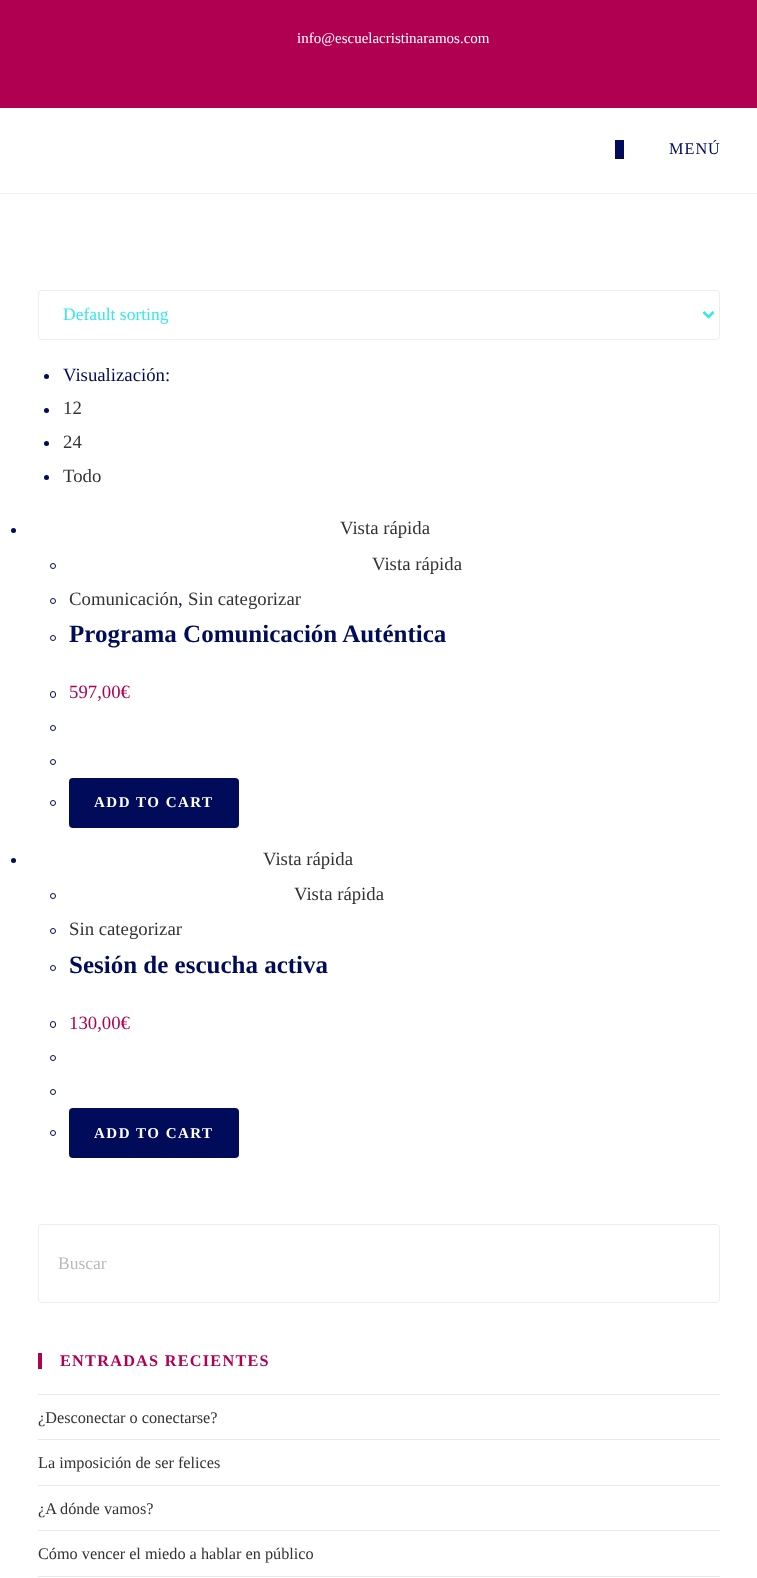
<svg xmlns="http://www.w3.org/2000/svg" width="757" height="1578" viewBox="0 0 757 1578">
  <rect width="100%" height="100%" fill="#fff"/>
  <path d="M0 0h757v108H0z" fill="#af0052"/>
  <path d="M0 193h757v1H0z" fill="#f1f1f1"/>
  <path d="M615 140h9v19H615z" fill="#000b59"/>
  <rect x="38.5" y="290.5" width="681" height="49" rx="3.5" fill="none" stroke="#eee"/>
  <path d="M703.5 312L708.5 317L713.5 312" fill="none" stroke="#35e8e8" stroke-width="2.5"/>
  <circle cx="46.5" cy="376.5" r="2.5" fill="#000b59"/>
  <circle cx="46.5" cy="410.5" r="2.5" fill="#000b59"/>
  <circle cx="46.5" cy="443.5" r="2.5" fill="#000b59"/>
  <circle cx="46.5" cy="477.5" r="2.5" fill="#000b59"/>
  <circle cx="13.5" cy="530.5" r="2.5" fill="#000b59"/>
  <circle cx="53" cy="566" r="2.5" fill="none" stroke="#000b59"/>
  <circle cx="53" cy="601" r="2.5" fill="none" stroke="#000b59"/>
  <circle cx="53" cy="638" r="2.5" fill="none" stroke="#000b59"/>
  <rect x="50.5" y="691.5" width="5" height="6" rx="2.5" fill="none" stroke="#000b59"/>
  <circle cx="53" cy="728" r="2.5" fill="none" stroke="#000b59"/>
  <circle cx="53" cy="762" r="2.5" fill="none" stroke="#000b59"/>
  <circle cx="53" cy="803" r="2.5" fill="none" stroke="#000b59"/>
  <rect x="69" y="778" width="170" height="50" rx="4" fill="#000b59"/>
  <circle cx="13.5" cy="860.5" r="2.5" fill="#000b59"/>
  <circle cx="53" cy="896" r="2.5" fill="none" stroke="#000b59"/>
  <circle cx="53" cy="931" r="2.5" fill="none" stroke="#000b59"/>
  <circle cx="53" cy="968" r="2.5" fill="none" stroke="#000b59"/>
  <rect x="50.5" y="1021.5" width="5" height="6" rx="2.5" fill="none" stroke="#000b59"/>
  <circle cx="53" cy="1058" r="2.5" fill="none" stroke="#000b59"/>
  <circle cx="53" cy="1092" r="2.5" fill="none" stroke="#000b59"/>
  <circle cx="53" cy="1133" r="2.5" fill="none" stroke="#000b59"/>
  <rect x="69" y="1108" width="170" height="50" rx="4" fill="#000b59"/>
  <rect x="38.5" y="1224.5" width="681" height="78" rx="3.5" fill="none" stroke="#eee"/>
  <path d="M38 1353h4v16H38z" fill="#af0052"/>
  <path d="M38 1394h682v1H38z" fill="#e9e9e9"/>
  <path d="M38 1439h682v1H38z" fill="#e9e9e9"/>
  <path d="M38 1485h682v1H38z" fill="#e9e9e9"/>
  <path d="M38 1530h682v1H38z" fill="#e9e9e9"/>
  <path d="M38 1576h682v1H38z" fill="#e9e9e9"/>
  <text x="297" y="43" font-family="Liberation Serif" font-size="15" fill="#fff">info@escuelacristinaramos.com</text>
  <text x="669" y="154" font-family="Liberation Serif" font-size="16.25" letter-spacing="1" fill="#000b59">MENÚ</text>
  <text x="63" y="320" font-family="Liberation Serif" font-size="17.5" fill="#35e8e8">Default sorting</text>
  <text x="63" y="381" font-family="Liberation Serif" font-size="18.75" fill="#000b59">Visualización:</text>
  <g font-family="Liberation Serif" font-size="18.75" fill="#333">
    <text x="63" y="414">12</text>
    <text x="63" y="448">24</text>
    <text x="63" y="482">Todo</text>
    <text x="340" y="534">Vista rápida</text>
    <text x="372" y="570">Vista rápida</text>
    <text x="69" y="605">Comunicación</text>
    <text x="188" y="605">Sin categorizar</text>
  </g>
  <text x="178" y="605" font-family="Liberation Serif" font-size="18.75" fill="#000b59">,</text>
  <text x="69" y="642" font-family="Liberation Serif" font-size="25" font-weight="bold" fill="#000b59">Programa Comunicación Auténtica</text>
  <text x="69" y="698" font-family="Liberation Serif" font-size="18.75" fill="#af0052">597,00€</text>
  <text x="94" y="807" font-family="Liberation Serif" font-size="15" font-weight="bold" letter-spacing="1.5" fill="#fff">ADD TO CART</text>
  <g font-family="Liberation Serif" font-size="18.75" fill="#333">
    <text x="263" y="865">Vista rápida</text>
    <text x="294" y="900">Vista rápida</text>
    <text x="69" y="935">Sin categorizar</text>
  </g>
  <text x="69" y="973" font-family="Liberation Serif" font-size="25" font-weight="bold" fill="#000b59">Sesión de escucha activa</text>
  <text x="69" y="1029" font-family="Liberation Serif" font-size="18.75" fill="#af0052">130,00€</text>
  <text x="94" y="1138" font-family="Liberation Serif" font-size="15" font-weight="bold" letter-spacing="1.5" fill="#fff">ADD TO CART</text>
  <text x="58" y="1269" font-family="Liberation Serif" font-size="17.5" fill="#bababa">Buscar</text>
  <text x="60" y="1366" font-family="Liberation Serif" font-size="16.25" font-weight="bold" letter-spacing="1.25" fill="#af0052">ENTRADAS RECIENTES</text>
  <g font-family="Liberation Serif" font-size="16.25" fill="#333">
    <text x="38" y="1423">¿Desconectar o conectarse?</text>
    <text x="38" y="1468">La imposición de ser felices</text>
    <text x="38" y="1514">¿A dónde vamos?</text>
    <text x="38" y="1559">Cómo vencer el miedo a hablar en público</text>
  </g>
</svg>
